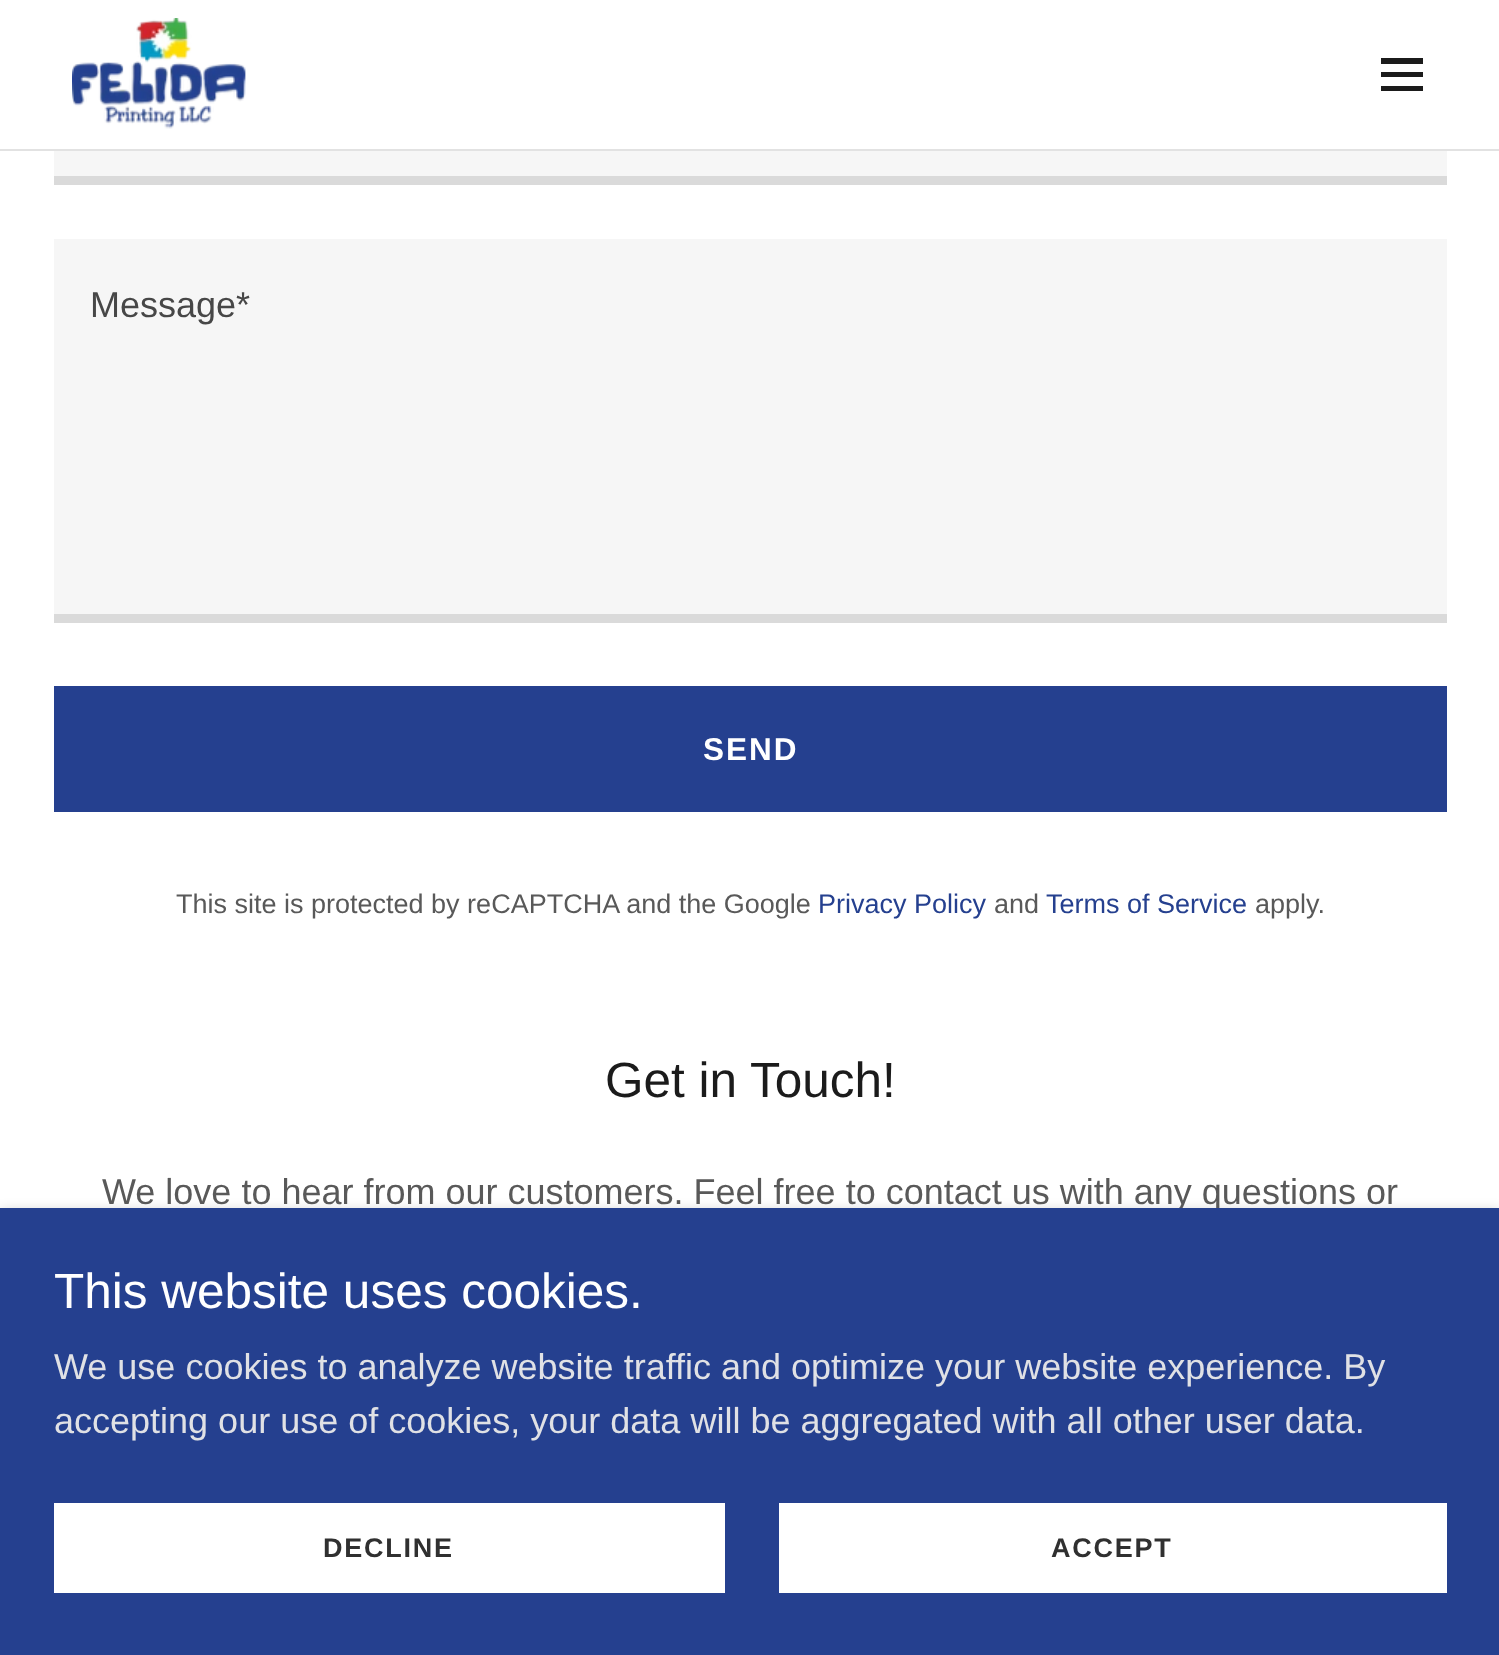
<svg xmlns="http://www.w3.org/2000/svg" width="1499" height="1655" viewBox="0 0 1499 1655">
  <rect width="100%" height="100%" fill="#fff"/>
  <image x="72" y="18" width="174" height="111" href="img/1.png"/>
  <path d="M1381 58h42v6H1381z" fill="#1b1b1b"/>
  <path d="M1381 72h42v5H1381z" fill="#1b1b1b"/>
  <path d="M1381 86h42v5H1381z" fill="#1b1b1b"/>
  <path d="M0 149h1499v2H0z" fill="#e2e2e2"/>
  <path d="M54 151h1393v25H54z" fill="#f6f6f6"/>
  <path d="M54 176h1393v9H54z" fill="#dadada"/>
  <path d="M54 239h1393v375H54z" fill="#f6f6f6"/>
  <path d="M54 614h1393v9H54z" fill="#dadada"/>
  <path d="M54 686h1393v126H54z" fill="#25408f"/>
  <path d="M0 1213h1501v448H0z" fill="#0000004d" filter="blur(7px)"/>
  <text x="90" y="317" font-family="Liberation Sans" font-size="36" fill="#474747">Message*</text>
  <text x="703" y="760" font-family="Liberation Sans" font-size="31.5" font-weight="bold" letter-spacing="2" fill="#fff">SEND</text>
  <text x="176" y="913" font-family="Liberation Sans" font-size="27" fill="#595959">This site is protected by reCAPTCHA and the Google</text>
  <text x="818" y="913" font-family="Liberation Sans" font-size="27" fill="#25408f">Privacy Policy</text>
  <text x="994" y="913" font-family="Liberation Sans" font-size="27" fill="#595959">and</text>
  <text x="1046" y="913" font-family="Liberation Sans" font-size="27" fill="#25408f">Terms of Service</text>
  <text x="1255" y="913" font-family="Liberation Sans" font-size="27" fill="#595959">apply.</text>
  <text x="605" y="1097" font-family="Liberation Sans" font-size="49.5" fill="#1b1b1b">Get in Touch!</text>
  <text x="102" y="1204" font-family="Liberation Sans" font-size="36" fill="#595959">We love to hear from our customers. Feel free to contact us with any questions or</text>
  <path d="M0 1208h1499v447H0z" fill="#25408f"/>
  <text x="54" y="1308" font-family="Liberation Sans" font-size="49.5" fill="#fff">This website uses cookies.</text>
  <g font-family="Liberation Sans" font-size="36" fill="#e0e1e5">
    <text x="54" y="1379">We use cookies to analyze website traffic and optimize your website experience. By</text>
    <text x="54" y="1433">accepting our use of cookies, your data will be aggregated with all other user data.</text>
  </g>
  <path d="M54 1503h671v90H54z" fill="#fff"/>
  <text x="323" y="1557" font-family="Liberation Sans" font-size="27" font-weight="bold" letter-spacing="1.75" fill="#303030">DECLINE</text>
  <path d="M779 1503h668v90H779z" fill="#fff"/>
  <text x="1051" y="1557" font-family="Liberation Sans" font-size="27" font-weight="bold" letter-spacing="1.75" fill="#303030">ACCEPT</text>
</svg>
